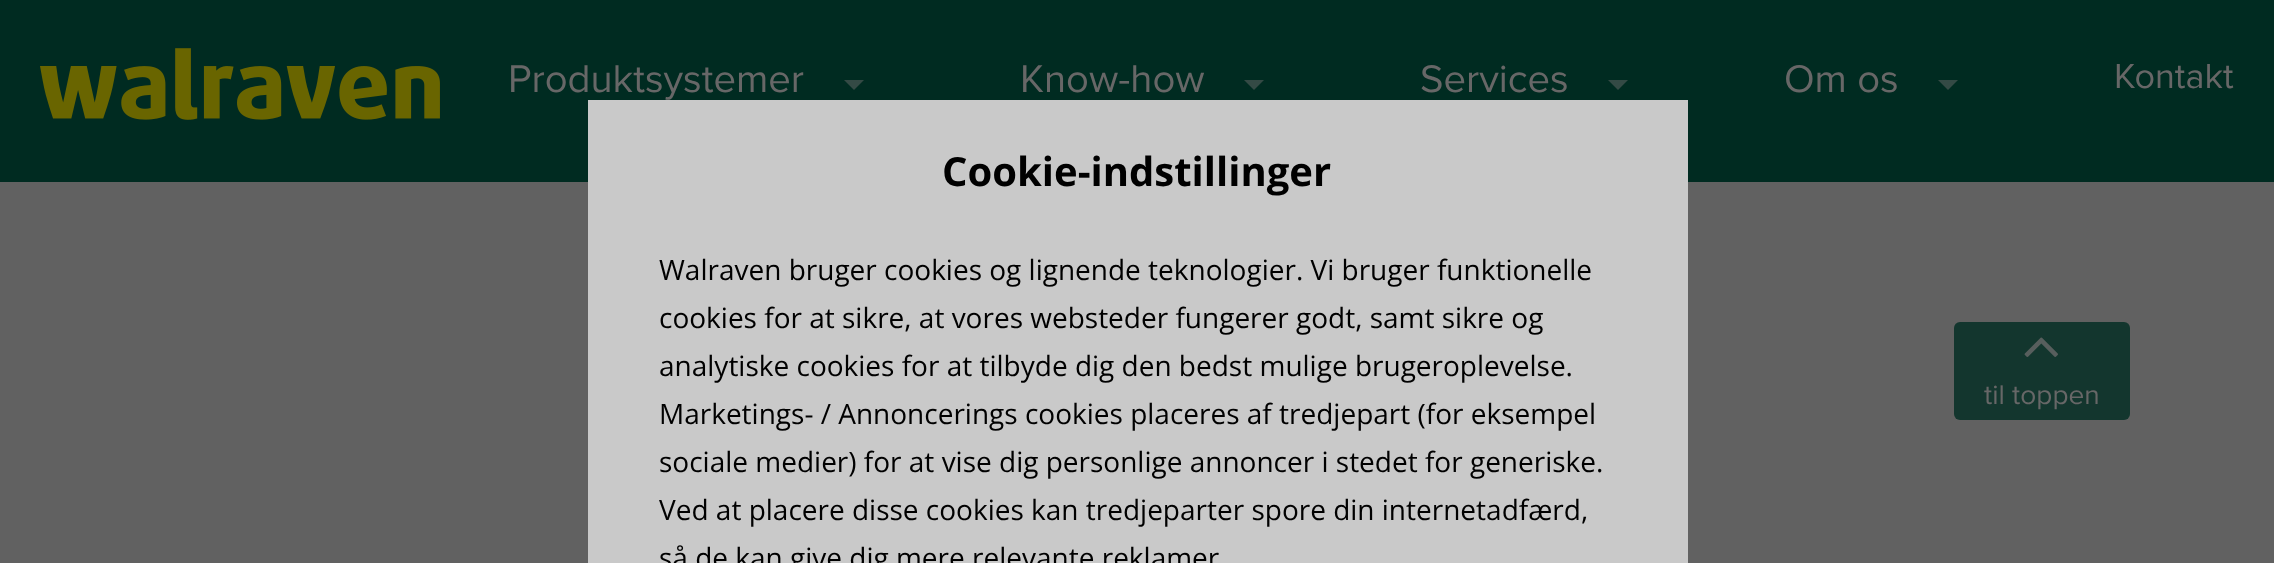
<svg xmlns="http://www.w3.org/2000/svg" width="2274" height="563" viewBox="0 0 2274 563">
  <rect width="100%" height="100%" fill="#616161"/>
  <path d="M0 0h2274v182H0z" fill="#002b21"/>
  <image x="40" y="48" width="400" height="72" href="img/1.png"/>
  <path d="M844 80H864L854 90Z" fill="#344a45"/>
  <path d="M1244 80H1264L1254 90Z" fill="#344a45"/>
  <path d="M1608 80H1628L1618 90Z" fill="#344a45"/>
  <path d="M1938 80H1958L1948 90Z" fill="#344a45"/>
  <path d="M588 100h1100v463H588z" fill="#c9c9c9"/>
  <rect x="1954" y="322" width="176" height="98" rx="6" fill="#13362e"/>
  <image x="2024" y="337" width="34" height="20" href="img/2.png"/>
  <g font-family="Proxima Nova" font-size="40" fill="#676767">
    <text x="508" y="92">Produktsystemer</text>
    <text x="1020" y="92">Know-how</text>
    <text x="1420" y="92">Services</text>
    <text x="1784" y="92">Om os</text>
  </g>
  <text x="2114" y="88" font-family="Proxima Nova" font-size="36" fill="#676767">Kontakt</text>
  <text x="942" y="186" font-family="Open Sans" font-size="40" font-weight="bold" fill="#000">Cookie-indstillinger</text>
  <g font-family="Open Sans" font-size="28" fill="#000">
    <text x="659" y="280">Walraven bruger cookies og lignende teknologier. Vi bruger funktionelle</text>
    <text x="659" y="328">cookies for at sikre, at vores websteder fungerer godt, samt sikre og</text>
    <text x="659" y="376">analytiske cookies for at tilbyde dig den bedst mulige brugeroplevelse.</text>
    <text x="659" y="424">Marketings- / Annoncerings cookies placeres af tredjepart (for eksempel</text>
    <text x="659" y="472">sociale medier) for at vise dig personlige annoncer i stedet for generiske.</text>
    <text x="659" y="520">Ved at placere disse cookies kan tredjeparter spore din internetadfærd,</text>
    <text x="659" y="568">så de kan give dig mere relevante reklamer</text>
  </g>
  <text x="1984" y="404" font-family="Proxima Nova" font-size="28" fill="#676767">til toppen</text>
</svg>
